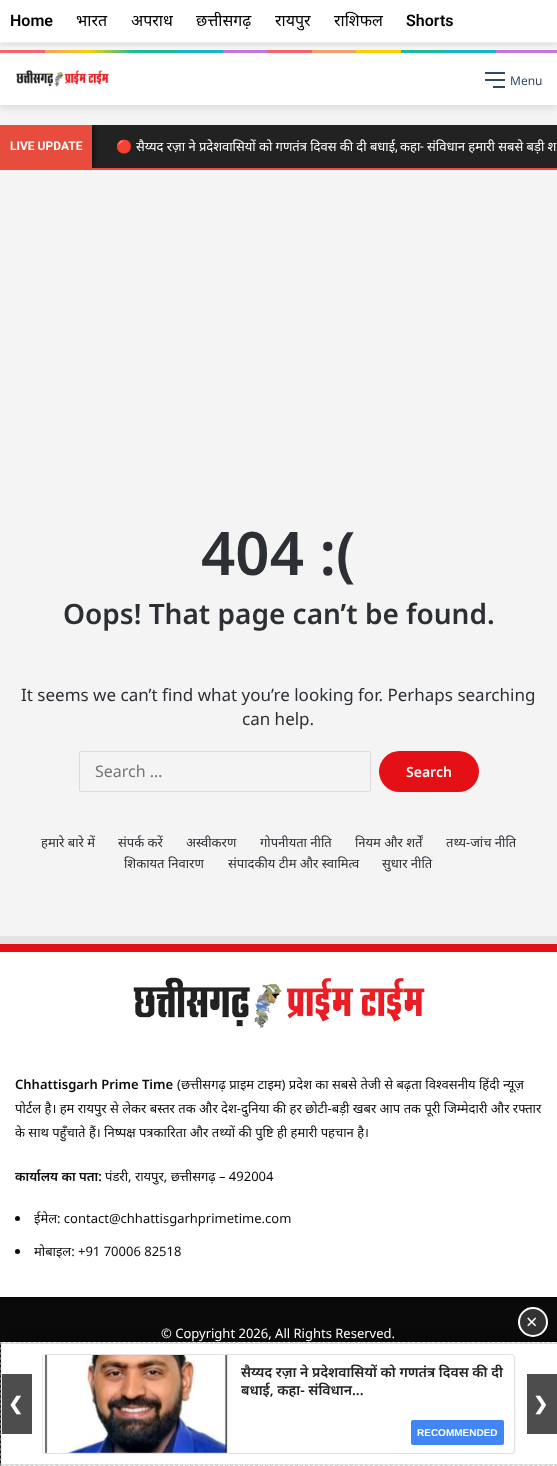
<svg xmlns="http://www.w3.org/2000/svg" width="557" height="1466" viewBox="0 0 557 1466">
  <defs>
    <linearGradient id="g1" gradientUnits="userSpaceOnUse" x1="0" y1="52" x2="557" y2="51"><stop offset="0" stop-color="#f76570"/><stop offset="0.08" stop-color="#f76570"/><stop offset="0.08" stop-color="#f3a46b"/><stop offset="0.16" stop-color="#ffd205"/><stop offset="0.24" stop-color="#1bbc9b"/><stop offset="0.32" stop-color="#1bbc9b"/><stop offset="0.32" stop-color="#14b9d5"/><stop offset="0.4" stop-color="#14b9d5"/><stop offset="0.4" stop-color="#c377e4"/><stop offset="0.48" stop-color="#c377e4"/><stop offset="0.48" stop-color="#f76570"/><stop offset="0.56" stop-color="#f76570"/><stop offset="0.56" stop-color="#f3a46b"/><stop offset="0.64" stop-color="#f3a46b"/><stop offset="0.64" stop-color="#ffd205"/><stop offset="0.72" stop-color="#ffd205"/><stop offset="0.72" stop-color="#1bbc9b"/><stop offset="0.8" stop-color="#1bbc9b"/><stop offset="0.8" stop-color="#14b9d5"/><stop offset="0.89" stop-color="#14b9d5"/><stop offset="0.89" stop-color="#c377e4"/><stop offset="1" stop-color="#c377e4"/></linearGradient>
    <clipPath id="clip1"><path d="M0 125h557v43H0z"/></clipPath>
    <clipPath id="clip2"><path d="M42 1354h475v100H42z"/></clipPath>
    <clipPath id="clip3"><path d="M15 1072h527v190H15z"/></clipPath>
    <clipPath id="clip4"><path d="M241 1363h263v36H241z"/></clipPath>
  </defs>
  <rect width="100%" height="100%" fill="#f7f7f7"/>
  <path d="M0 50h557v3H0z" fill="url(#g1)"/>
  <path d="M0 105h557v831H0z" fill="#f4f4f4"/>
  <path d="M0 56h557v52H0z" fill="#0000001a" filter="blur(3.5px)"/>
  <path d="M0 53h557v52H0z" fill="#fff"/>
  <path d="M0 2h557v43H0z" fill="#0000001a" filter="blur(2.5px)"/>
  <path d="M0 0h557v42H0z" fill="#fff"/>
  <path d="M0 42h557v1H0z" fill="#eee"/>
  <image x="16" y="70" width="93" height="17" href="img/1.png"/>
  <path d="M485 79h20v2H485z" fill="#34495e"/>
  <path d="M485 72h20v2H485z" fill="#34495e"/>
  <path d="M493 86h12v2H493z" fill="#34495e"/>
  <path d="M92 125h465v43H92z" fill="#222"/>
  <path d="M0 168h557v2H0z" fill="#e74c3c"/>
  <g clip-path="url(#clip1)">
    <path d="M2 125h92v43H2z" fill="#00000080" filter="blur(2.5px)"/>
  </g>
  <path d="M0 125h92v43H0z" fill="#e74c3c"/>
  <rect x="79.5" y="751.5" width="291" height="40" rx="1.5" fill="none" stroke="#dcdcdc"/>
  <rect x="379" y="751" width="100" height="41" rx="20.5" fill="#e51016"/>
  <path d="M0 952h557v345H0z" fill="#fff"/>
  <path d="M0 936h557v8H0z" fill="#e3e3e3"/>
  <path d="M0 944h557v8H0z" fill="#e51016"/>
  <image x="133" y="977" width="292" height="51" href="img/2.png"/>
  <circle cx="17.5" cy="1218.5" r="2.5" fill="#0c0c0c"/>
  <circle cx="17.5" cy="1251.5" r="2.5" fill="#0c0c0c"/>
  <path d="M0 1297h557v169H0z" fill="#0a0a0a"/>
  <path d="M1 1340h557v124H1z" fill="#00000026" filter="blur(5px)"/>
  <path d="M1 1342h554v124H1z" fill="#fff"/>
  <circle cx="533" cy="1322" r="14" fill="#333" stroke="#fff" stroke-width="2"/>
  <path d="M.5 1342.5H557.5" fill="none" stroke="#ccc" stroke-dasharray="3 1.99"/>
  <path d="M557 1342V1466" fill="none" stroke="#ccc" stroke-dasharray="3 2.04"/>
  <path d="M.5 1465.5H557.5" fill="none" stroke="#ccc" stroke-dasharray="3 1.99"/>
  <path d="M1 1342V1466" fill="none" stroke="#ccc" stroke-dasharray="3 2.04"/>
  <path d="M555 1344h2v120H555z" fill="#fff"/>
  <path d="M2 1343h555v1H2z" fill="#ddd"/>
  <path d="M2 1464h555v1H2z" fill="#ddd"/>
  <path d="M2 1374h30v60H2z" fill="#4d4d4d"/>
  <g clip-path="url(#clip2)">
    <rect x="42" y="1356" width="473" height="100" rx="4" fill="#0000000d" filter="blur(2px)"/>
  </g>
  <rect x="42.5" y="1354.5" width="472" height="99" rx="3.5" fill="#fff" stroke="#e0e0e0"/>
  <image x="42" y="1355" width="189" height="98" href="img/3.png"/>
  <rect x="411" y="1420" width="93" height="25" rx="2" fill="#4285f4"/>
  <path d="M527 1374h30v60H527z" fill="#4d4d4d"/>
  <text x="10" y="26" font-family="Roboto" font-size="16" font-weight="600" fill="#000">Home</text>
  <g font-family="'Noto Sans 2'" font-size="16" fill="#000">
    <text x="76" y="26">भारत</text>
    <text x="131" y="26">अपराध</text>
    <text x="196" y="26">छत्तीसगढ़</text>
    <text x="275" y="26">रायपुर</text>
    <text x="334" y="26">राशिफल</text>
  </g>
  <text x="406" y="26" font-family="Roboto" font-size="16" font-weight="600" fill="#000">Shorts</text>
  <text x="510" y="85" font-family="Noto Sans" font-size="12" fill="#34495e">Menu</text>
  <text x="10" y="150" font-family="Roboto" font-size="12" font-weight="bold" fill="#fff">LIVE UPDATE</text>
  <text x="116" y="151" font-family="Noto Color Emoji" font-size="13" fill="#fff">🔴</text>
  <g font-family="'Noto Sans 2'" font-size="13" fill="#fff">
    <text x="136" y="151" word-spacing="-0.1">सैय्यद रज़ा ने प्रदेशवासियों को गणतंत्र दिवस की दी बधाई</text>
    <text x="400" y="151">कहा</text>
  </g>
  <text x="420" y="151" font-family="Roboto" font-size="13" fill="#fff">-</text>
  <text x="427" y="151" word-spacing="-0.1" font-family="'Noto Sans 2'" font-size="13" fill="#fff">संविधान हमारी सबसे बड़ी श</text>
  <text x="395" y="151" font-family="Roboto" font-size="13" fill="#fff">,</text>
  <text x="201" y="575" font-family="Noto Sans" font-size="60" font-weight="600" fill="#2c2f34">404 :(</text>
  <text x="63" y="624" font-family="Noto Sans" font-size="28" font-weight="600" fill="#2c2f34">Oops! That page can’t be found.</text>
  <g font-family="Noto Sans" font-size="17" fill="#2c2f34">
    <text x="21" y="701">It seems we can’t find what you’re looking for. Perhaps searching</text>
    <text x="242" y="725">can help.</text>
  </g>
  <text x="95" y="777" font-family="Noto Sans" font-size="16" fill="#757575">Search …</text>
  <text x="406" y="777" font-family="Noto Sans" font-size="14" font-weight="600" fill="#fff">Search</text>
  <g font-family="Noto Sans" font-size="13" fill="#2c2f34">
    <text x="41" y="847">हमारे बारे में</text>
    <text x="118" y="847">संपर्क करें</text>
    <text x="186" y="847">अस्वीकरण</text>
    <text x="260" y="847">गोपनीयता नीति</text>
    <text x="355" y="847">नियम और शर्तें</text>
    <text x="446" y="847">तथ्य-जांच नीति</text>
    <text x="124" y="868">शिकायत निवारण</text>
    <text x="228" y="868">संपादकीय टीम और स्वामित्व</text>
    <text x="382" y="868">सुधार नीति</text>
  </g>
  <text x="15" y="1089" font-family="Noto Sans" font-size="13" font-weight="600" fill="#0c0c0c">Chhattisgarh Prime Time</text>
  <text x="177" y="1089" font-family="Noto Sans" font-size="13" fill="#0c0c0c">(छत्तीसगढ़ प्राइम टाइम) प्रदेश का सबसे तेजी से बढ़ता विश्वसनीय हिंदी न्यूज़</text>
  <g clip-path="url(#clip3)">
    <g font-family="Noto Sans" font-size="13" fill="#0c0c0c">
      <text x="15" y="1113">पोर्टल है। हम रायपुर से लेकर बस्तर तक और देश-दुनिया की हर छोटी-बड़ी खबर आप तक पूरी जिम्मेदारी और रफ्तार</text>
      <text x="15" y="1137">के साथ पहुँचाते हैं। निष्पक्ष पत्रकारिता और तथ्यों की पुष्टि ही हमारी पहचान है।</text>
    </g>
  </g>
  <text x="15" y="1181" font-family="Noto Sans" font-size="13" font-weight="600" fill="#0c0c0c">कार्यालय का पता:</text>
  <g font-family="Noto Sans" font-size="13" fill="#0c0c0c">
    <text x="105" y="1181">पंडरी, रायपुर, छत्तीसगढ़ – 492004</text>
    <text x="34" y="1223">ईमेल: contact@chhattisgarhprimetime.com</text>
    <text x="34" y="1256">मोबाइल: +91 70006 82518</text>
  </g>
  <text x="161" y="1338" font-family="Noto Sans" font-size="13" fill="#fff">© Copyright 2026, All Rights Reserved.</text>
  <text x="526" y="1329" font-family="Noto Sans" font-size="20" fill="#fff">×</text>
  <text x="8" y="1410" font-family="DejaVu Sans" font-size="18" font-weight="bold" fill="#fff">❮</text>
  <g clip-path="url(#clip4)">
    <text x="241" y="1377" font-family="Noto Sans" font-size="14" font-weight="600" fill="#222">सैय्यद रज़ा ने प्रदेशवासियों को गणतंत्र दिवस की दी</text>
  </g>
  <text x="241" y="1395" font-family="Noto Sans" font-size="14" font-weight="600" fill="#222">बधाई, कहा- संविधान...</text>
  <text x="417" y="1436" font-family="Liberation Sans" font-size="10" font-weight="bold" fill="#fff">RECOMMENDED</text>
  <text x="533" y="1410" font-family="DejaVu Sans" font-size="18" font-weight="bold" fill="#fff">❯</text>
</svg>
